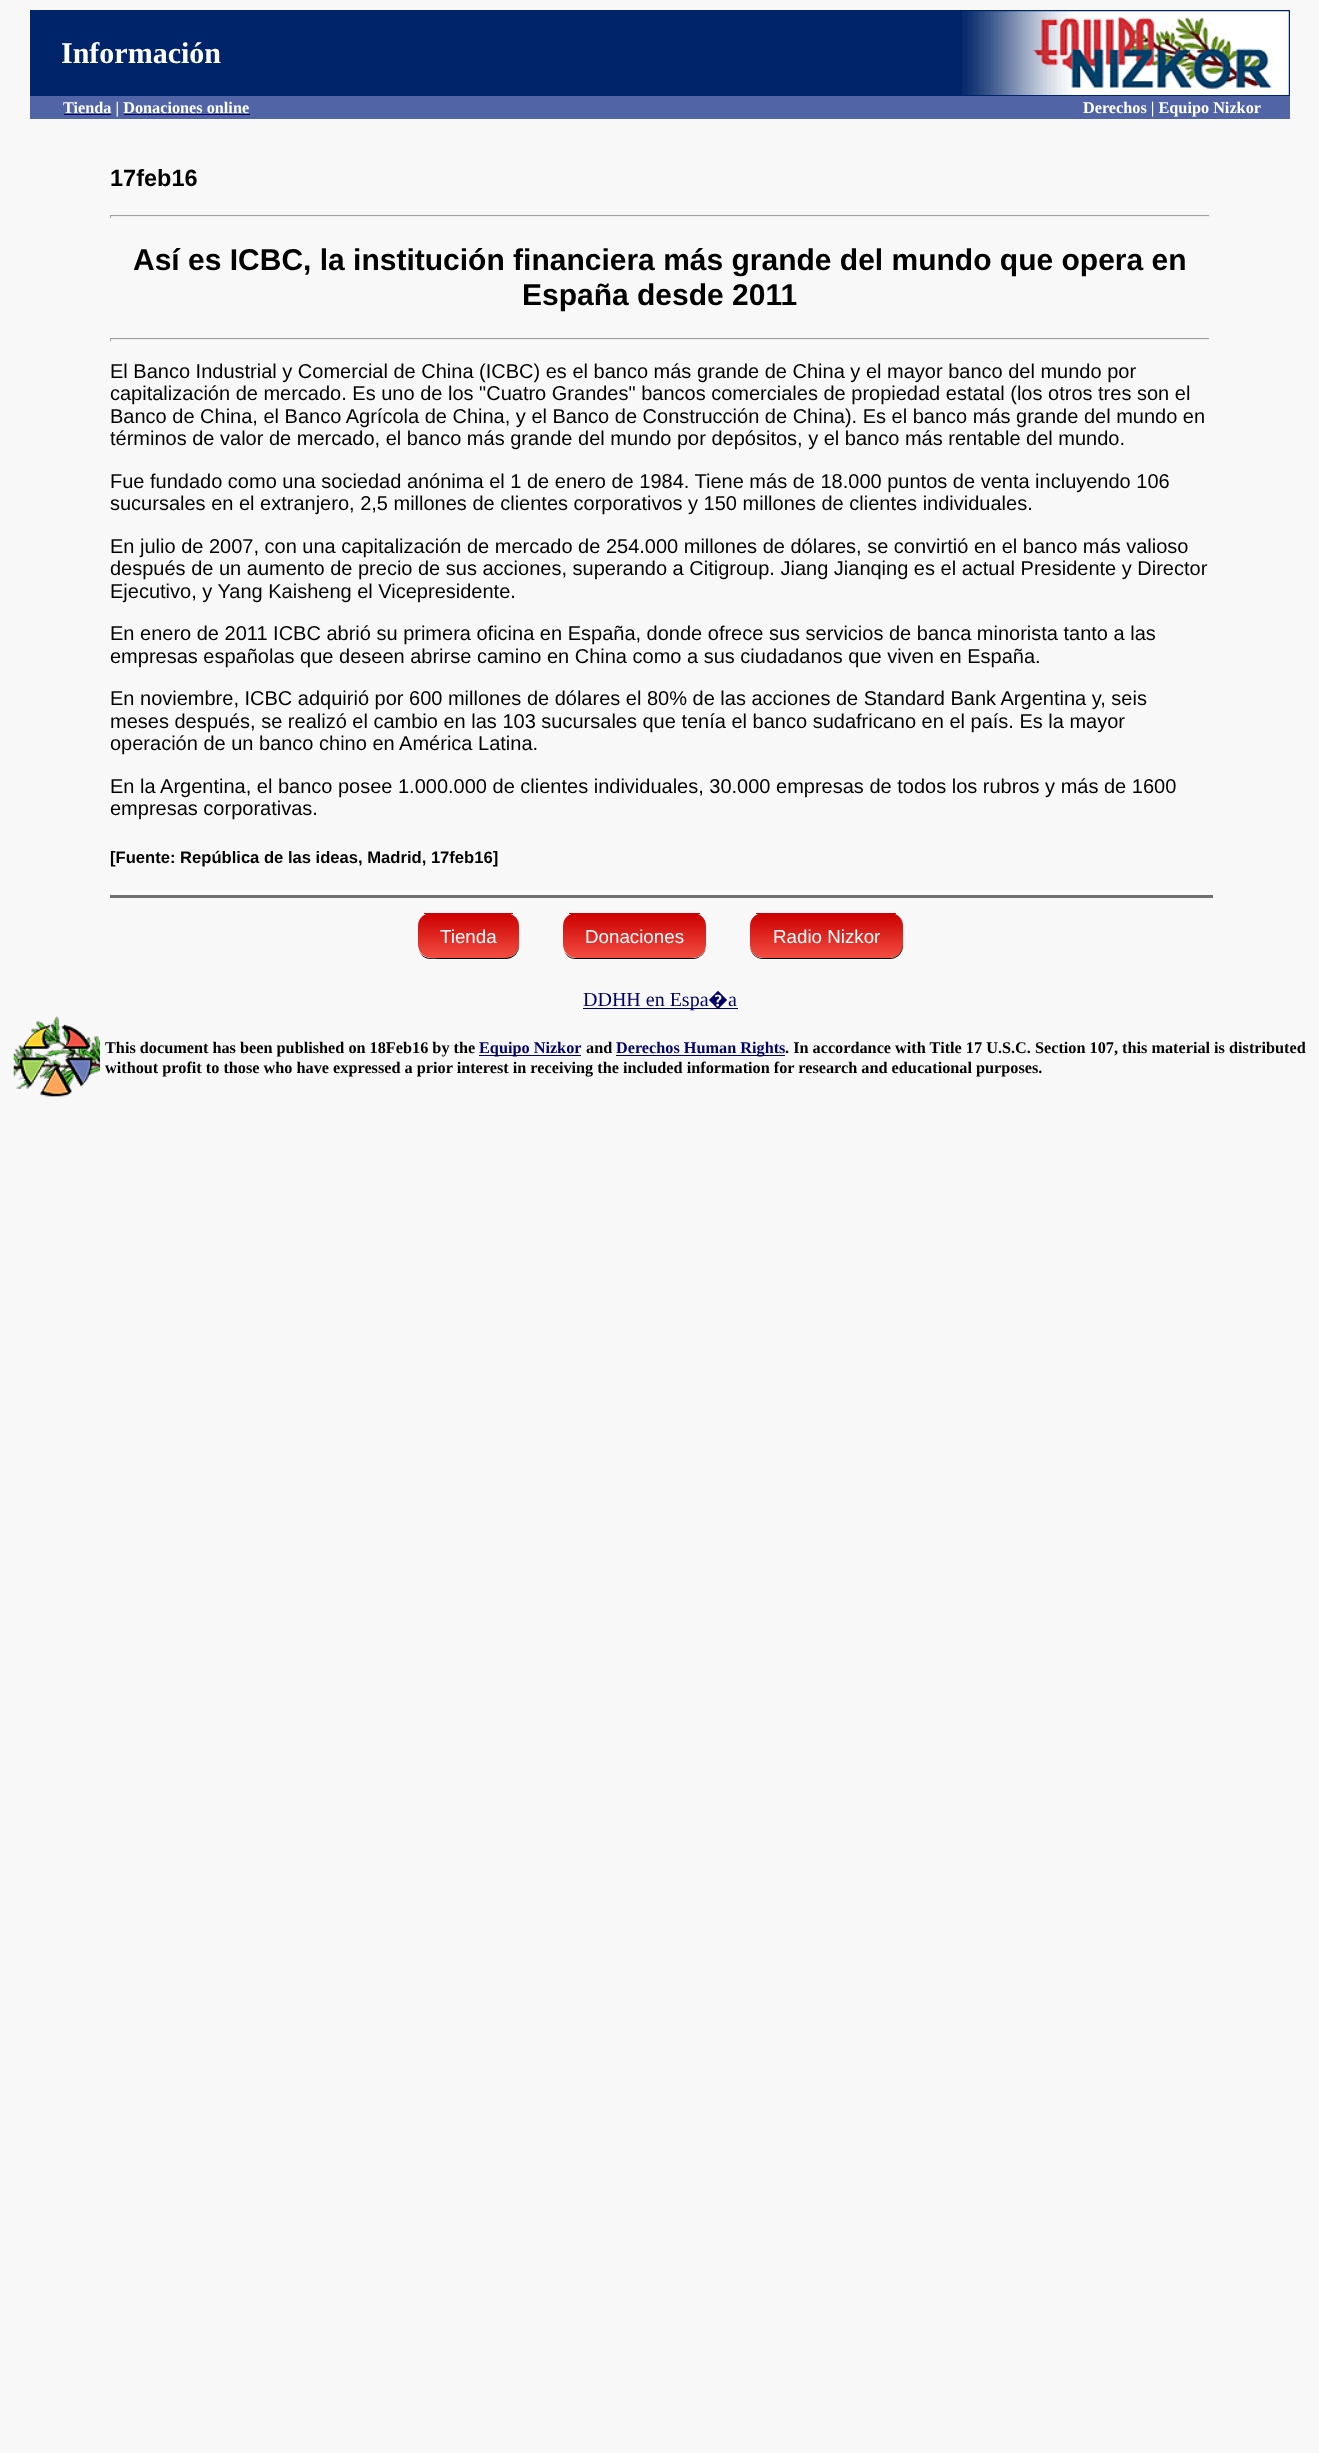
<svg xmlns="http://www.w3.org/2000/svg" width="1319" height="2453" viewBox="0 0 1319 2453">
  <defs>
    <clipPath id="clip1"><rect x="418" y="913" width="101" height="45" rx="13"/></clipPath>
    <linearGradient id="g1" gradientUnits="userSpaceOnUse" x1="468" y1="914" x2="468" y2="958"><stop offset="0" stop-color="#c00"/><stop offset="1" stop-color="#f24d41"/></linearGradient>
    <clipPath id="clip2"><rect x="563" y="913" width="143" height="45" rx="13"/></clipPath>
    <linearGradient id="g2" gradientUnits="userSpaceOnUse" x1="634" y1="914" x2="634" y2="958"><stop offset="0" stop-color="#c00"/><stop offset="1" stop-color="#f24d41"/></linearGradient>
    <clipPath id="clip3"><rect x="750" y="913" width="153" height="45" rx="13"/></clipPath>
    <linearGradient id="g3" gradientUnits="userSpaceOnUse" x1="826" y1="914" x2="826" y2="958"><stop offset="0" stop-color="#c00"/><stop offset="1" stop-color="#f24d41"/></linearGradient>
  </defs>
  <rect width="100%" height="100%" fill="#f8f8f8"/>
  <path d="M30 10h1260v86H30z" fill="#002469"/>
  <image x="962" y="11" width="327" height="84" href="img/1.png"/>
  <path d="M30 96h1260v23H30z" fill="#5164a6"/>
  <path d="M64 114h47v1H64z" fill="#006"/>
  <path d="M110 215h1100v1H110z" fill="#9f9f9f"/>
  <path d="M1209 215h1v3H1209z" fill="#eee"/>
  <path d="M110 216h1100v1H110z" fill="#eee"/>
  <path d="M110 215h1v3H110z" fill="#9f9f9f"/>
  <path d="M110 338h1100v1H110z" fill="#9f9f9f"/>
  <path d="M1209 338h1v3H1209z" fill="#eee"/>
  <path d="M110 339h1100v1H110z" fill="#eee"/>
  <path d="M110 338h1v3H110z" fill="#9f9f9f"/>
  <path d="M110 895h1103v3H110z" fill="#707070"/>
  <path d="M419 951C421 956 425 959 431 959H506C513 959 519 953 519 946V924V938C519 946 519 955 509 957L443 958C434 958 423 960 419 951Z" fill="#000"/>
  <g clip-path="url(#clip1)">
    <path d="M418 914H519V945C519 952 513 958 506 958H431C424 958 418 952 418 945Z" fill="url(#g1)"/>
  </g>
  <path d="M424 913h89v1H424z" fill="#cb0000"/>
  <path d="M564 951C566 956 570 959 576 959H693C699 959 705 954 706 948C704 954 699 958 694 958H575C570 958 566 955 564 951Z" fill="#000"/>
  <g clip-path="url(#clip2)">
    <path d="M563 914H706V945C706 952 700 958 693 958H576C569 958 563 952 563 945Z" fill="url(#g2)"/>
  </g>
  <path d="M569 913h131v1H569z" fill="#cb0000"/>
  <path d="M750 945V946C750 953 756 959 763 959H890C897 959 903 953 903 946V927L902 923V945C902 952 897 958 890 958H762C756 958 750 952 750 945Z" fill="#000"/>
  <g clip-path="url(#clip3)">
    <path d="M750 914H903V945C903 952 897 958 890 958H763C756 958 750 952 750 945Z" fill="url(#g3)"/>
  </g>
  <path d="M756 913h140v1H756z" fill="#cb0000"/>
  <path d="M583 1008h155v1H583z" fill="#006"/>
  <image x="13" y="1016" width="87" height="81" href="img/2.png"/>
  <path d="M479 1055h102v1H479z" fill="#006"/>
  <path d="M616 1055h169v1H616z" fill="#006"/>
  <text x="61" y="63" font-family="Liberation Serif" font-size="30" font-weight="bold" fill="#fff">Información</text>
  <text x="63" y="113" font-family="Liberation Serif" font-size="16.25" font-weight="bold" fill="#fff">Tienda | Donaciones online</text>
  <path d="M124 114h126v1H124z" fill="#006"/>
  <text x="1083" y="113" font-family="Liberation Serif" font-size="16.25" font-weight="bold" fill="#fff">Derechos | Equipo Nizkor</text>
  <text x="110" y="186" font-family="Liberation Sans" font-size="23.5" font-weight="bold" fill="#000">17feb16</text>
  <g font-family="Liberation Sans" font-size="30" font-weight="bold" fill="#000">
    <text x="133" y="270">Así es ICBC, la institución financiera más grande del mundo que opera en</text>
    <text x="522" y="305">España desde 2011</text>
  </g>
  <g font-family="Liberation Sans" font-size="20" fill="#000">
    <text x="110" y="378">El Banco Industrial y Comercial de China (ICBC) es el banco más grande de China y el mayor banco del mundo por</text>
    <text x="110" y="400">capitalización de mercado. Es uno de los "Cuatro Grandes" bancos comerciales de propiedad estatal (los otros tres son el</text>
    <text x="110" y="423">Banco de China, el Banco Agrícola de China, y el Banco de Construcción de China). Es el banco más grande del mundo en</text>
    <text x="110" y="445">términos de valor de mercado, el banco más grande del mundo por depósitos, y el banco más rentable del mundo.</text>
    <text x="110" y="488">Fue fundado como una sociedad anónima el 1 de enero de 1984. Tiene más de 18.000 puntos de venta incluyendo 106</text>
    <text x="110" y="510">sucursales en el extranjero, 2,5 millones de clientes corporativos y 150 millones de clientes individuales.</text>
    <text x="110" y="553">En julio de 2007, con una capitalización de mercado de 254.000 millones de dólares, se convirtió en el banco más valioso</text>
    <text x="110" y="575">después de un aumento de precio de sus acciones, superando a Citigroup. Jiang Jianqing es el actual Presidente y Director</text>
    <text x="110" y="598">Ejecutivo, y Yang Kaisheng el Vicepresidente.</text>
    <text x="110" y="640">En enero de 2011 ICBC abrió su primera oficina en España, donde ofrece sus servicios de banca minorista tanto a las</text>
    <text x="110" y="663">empresas españolas que deseen abrirse camino en China como a sus ciudadanos que viven en España.</text>
    <text x="110" y="705">En noviembre, ICBC adquirió por 600 millones de dólares el 80% de las acciones de Standard Bank Argentina y, seis</text>
    <text x="110" y="728">meses después, se realizó el cambio en las 103 sucursales que tenía el banco sudafricano en el país. Es la mayor</text>
    <text x="110" y="750">operación de un banco chino en América Latina.</text>
    <text x="110" y="793">En la Argentina, el banco posee 1.000.000 de clientes individuales, 30.000 empresas de todos los rubros y más de 1600</text>
    <text x="110" y="815">empresas corporativas.</text>
  </g>
  <text x="110" y="863" font-family="Liberation Sans" font-size="16.6" font-weight="bold" fill="#000">[Fuente: República de las ideas, Madrid, 17feb16]</text>
  <g font-family="Liberation Sans" font-size="18.75" fill="#fff">
    <text x="440" y="943">Tienda</text>
    <text x="585" y="943">Donaciones</text>
    <text x="773" y="943">Radio Nizkor</text>
  </g>
  <text x="583" y="1006" font-family="Liberation Serif" font-size="20" fill="#006">DDHH en Espa</text>
  <text x="708" y="1006" font-family="Noto Sans" font-size="20" fill="#006">�</text>
  <text x="728" y="1006" font-family="Liberation Serif" font-size="20" fill="#006">a</text>
  <text x="105" y="1053" font-family="Liberation Serif" font-size="16.25" font-weight="bold" fill="#000">This document has been published on 18Feb16 by the</text>
  <text x="479" y="1053" font-family="Liberation Serif" font-size="16.25" font-weight="bold" fill="#006">Equipo Nizkor</text>
  <text x="586" y="1053" font-family="Liberation Serif" font-size="16.25" font-weight="bold" fill="#000">and</text>
  <text x="616" y="1053" font-family="Liberation Serif" font-size="16.25" font-weight="bold" fill="#006">Derechos Human Rights</text>
  <g font-family="Liberation Serif" font-size="16.25" font-weight="bold" fill="#000">
    <text x="785" y="1053">. In accordance with Title 17 U.S.C. Section 107, this material is distributed</text>
    <text x="105" y="1073">without profit to those who have expressed a prior interest in receiving the included information for research and educational purposes.</text>
  </g>
</svg>
